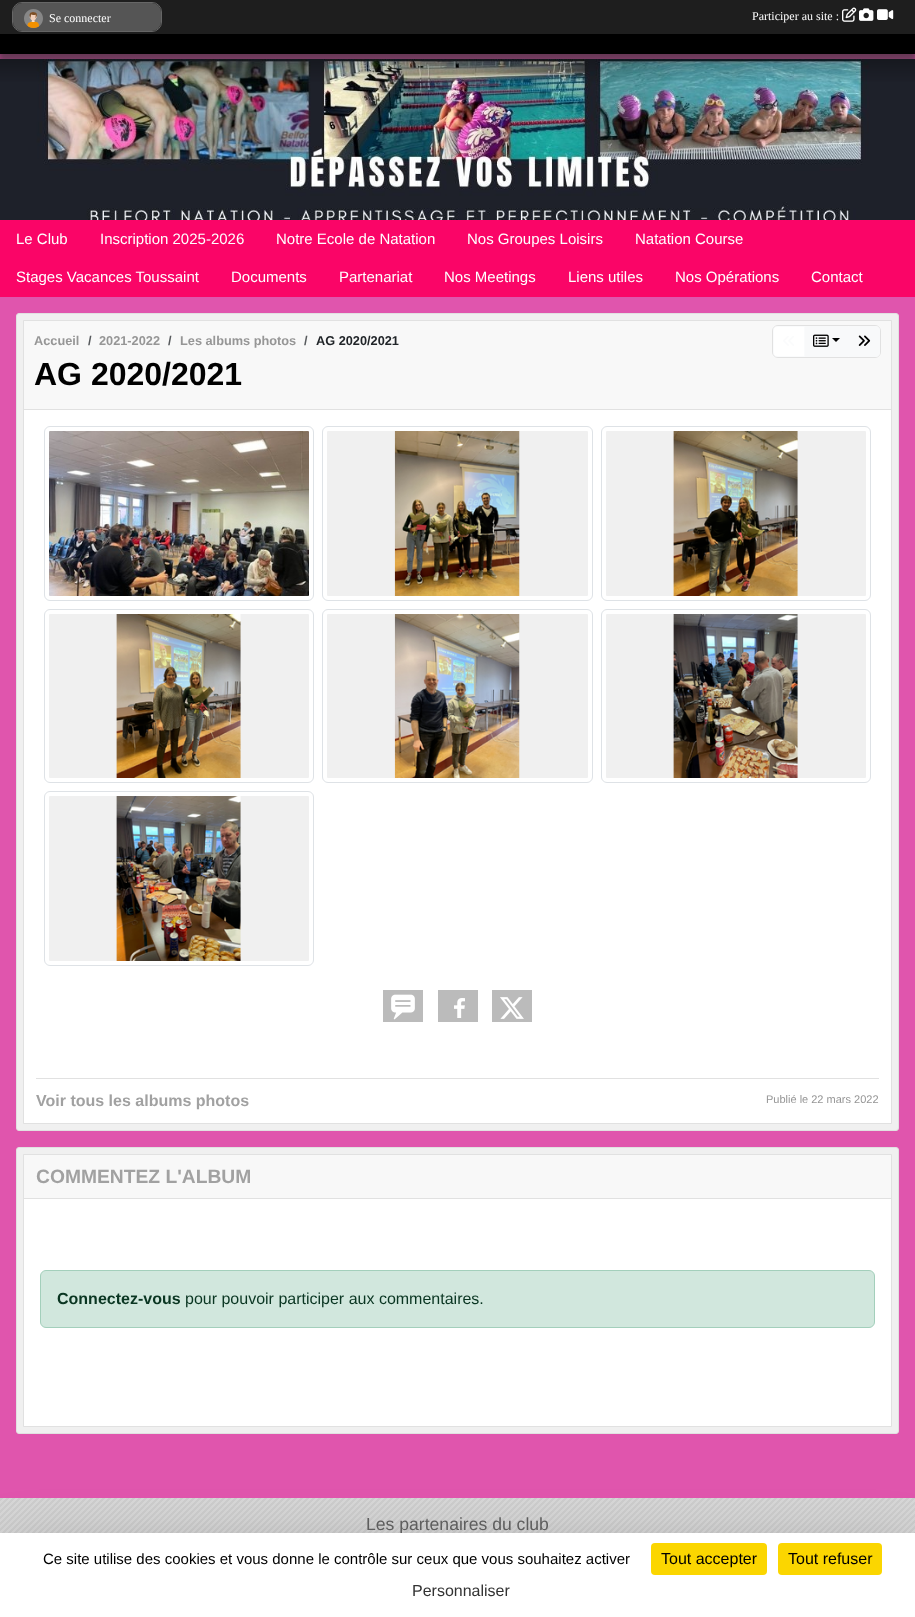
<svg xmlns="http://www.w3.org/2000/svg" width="915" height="1617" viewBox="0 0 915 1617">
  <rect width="100%" height="100%" fill="#e055ad"/>
  <path d="M0 41h915v20H0z" fill="#50505080" filter="blur(2.5px)"/>
  <path d="M0 0h915v34H0z" fill="#1e1e1e"/>
  <rect x="12.5" y="2.5" width="149" height="29" rx="9.5" fill="none" stroke="#666"/>
  <rect x="13" y="3" width="148" height="28" rx="9" fill="#555"/>
  <image x="24" y="9" width="19" height="19" href="img/1.png"/>
  <image x="842" y="7" width="15" height="15" href="img/2.png"/>
  <image x="859" y="8" width="15" height="13" href="img/3.png"/>
  <image x="877" y="9" width="17" height="11" href="img/4.png"/>
  <path d="M0 34h915v20H0z" fill="#000"/>
  <image x="0" y="59" width="915" height="161" href="img/6.png"/>
  <image x="0" y="54" width="915" height="28" href="img/5.png"/>
  <path d="M0 220h915v77H0z" fill="#fa0567"/>
  <rect x="16.5" y="313.5" width="882" height="817" rx="2.5" fill="#f0f0f0" stroke="#e1e1e1"/>
  <path d="M24 410h867v713H24z" fill="#fff"/>
  <path d="M23.5 320.5h868v803H23.5z" fill="none" stroke="#e1e1e1"/>
  <path d="M24 321h867v88H24z" fill="#f8f8f8"/>
  <path d="M24 409h867v1H24z" fill="#e1e1e1"/>
  <rect x="772.5" y="325.5" width="108" height="32" rx="5.5" fill="#fff" stroke="#e1e1e1"/>
  <path d="M777 326.5H804.5V356.5H777C775 356.5 773.5 355 773.5 353V330C773.5 328 775 326.5 777 326.5Z" fill="none" stroke="#f8f9faa6"/>
  <image x="783" y="336" width="11" height="10" href="img/7.png"/>
  <path d="M805 326h43v31H805z" fill="#f8f9fa"/>
  <image x="813" y="334" width="16" height="13" href="img/8.png"/>
  <path d="M832 338H840L836 342Z" fill="#000"/>
  <path d="M848.5 326.5H876C878 326.5 879.5 328 879.5 330V353C879.5 355 878 356.5 876 356.5H848.5Z" fill="#f8f9fa" stroke="#f8f9fa"/>
  <image x="858" y="335" width="13" height="11" href="img/9.png"/>
  <rect x="44.5" y="426.5" width="269" height="174" rx="5.5" fill="none" stroke="#dee2e6"/>
  <image x="49" y="431" width="260" height="165" href="img/10.png"/>
  <rect x="322.5" y="426.5" width="270" height="174" rx="5.5" fill="none" stroke="#dee2e6"/>
  <image x="327" y="431" width="261" height="165" href="img/11.png"/>
  <rect x="601.5" y="426.5" width="269" height="174" rx="5.5" fill="none" stroke="#dee2e6"/>
  <image x="606" y="431" width="260" height="165" href="img/12.png"/>
  <rect x="44.5" y="609.5" width="269" height="173" rx="5.5" fill="none" stroke="#dee2e6"/>
  <image x="49" y="614" width="260" height="164" href="img/13.png"/>
  <rect x="322.5" y="609.5" width="270" height="173" rx="5.5" fill="none" stroke="#dee2e6"/>
  <image x="327" y="614" width="261" height="164" href="img/14.png"/>
  <rect x="601.5" y="609.5" width="269" height="173" rx="5.5" fill="none" stroke="#dee2e6"/>
  <image x="606" y="614" width="260" height="164" href="img/15.png"/>
  <rect x="44.5" y="791.5" width="269" height="174" rx="5.5" fill="none" stroke="#dee2e6"/>
  <image x="49" y="796" width="260" height="165" href="img/16.png"/>
  <path d="M383 990h40v32H383z" fill="#bbb"/>
  <image x="391" y="994" width="24" height="26" href="img/17.png"/>
  <path d="M438 990h40v32H438z" fill="#bbb"/>
  <image x="454" y="998" width="11" height="20" href="img/18.png"/>
  <path d="M492 990h40v32H492z" fill="#bbb"/>
  <image x="500" y="997" width="24" height="22" href="img/19.png"/>
  <path d="M36 1078h843v1H36z" fill="#e1e1e1"/>
  <rect x="16.5" y="1147.5" width="882" height="286" rx="2.5" fill="#f0f0f0" stroke="#e1e1e1"/>
  <path d="M24 1199h867v227H24z" fill="#fff"/>
  <path d="M23.5 1154.5h868v272H23.5z" fill="none" stroke="#e1e1e1"/>
  <path d="M24 1155h867v43H24z" fill="#f8f8f8"/>
  <path d="M24 1198h867v1H24z" fill="#e1e1e1"/>
  <rect x="40.5" y="1270.5" width="834" height="57" rx="5.5" fill="#d1e7dd" stroke="#a3cfbb"/>
  <image x="0" y="1498" width="915" height="35" href="img/20.png"/>
  <path d="M0 1553h915v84H0z" fill="#00000040" filter="blur(30px)"/>
  <g font-family="Liberation Serif" font-size="12" fill="#fff">
    <text x="49" y="22">Se connecter</text>
    <text x="752" y="20">Participer au site :</text>
  </g>
  <g font-family="Liberation Sans" font-size="15" fill="#fff">
    <text x="16" y="244">Le Club</text>
    <text x="100" y="244">Inscription 2025-2026</text>
    <text x="276" y="244">Notre Ecole de Natation</text>
    <text x="467" y="244">Nos Groupes Loisirs</text>
    <text x="635" y="244">Natation Course</text>
    <text x="16" y="282">Stages Vacances Toussaint</text>
    <text x="231" y="282">Documents</text>
    <text x="339" y="282">Partenariat</text>
    <text x="444" y="282">Nos Meetings</text>
    <text x="568" y="282">Liens utiles</text>
    <text x="675" y="282">Nos Opérations</text>
    <text x="811" y="282">Contact</text>
  </g>
  <text x="34" y="345" font-family="Liberation Sans" font-size="12.75" font-weight="bold" fill="#969696">Accueil</text>
  <text x="88" y="345" font-family="Liberation Sans" font-size="12.75" font-weight="bold" fill="#575a5d">/</text>
  <text x="99" y="345" font-family="Liberation Sans" font-size="12.75" font-weight="bold" fill="#969696">2021-2022</text>
  <text x="168" y="345" font-family="Liberation Sans" font-size="12.75" font-weight="bold" fill="#575a5d">/</text>
  <text x="180" y="345" font-family="Liberation Sans" font-size="12.75" font-weight="bold" fill="#969696">Les albums photos</text>
  <text x="304" y="345" font-family="Liberation Sans" font-size="12.75" font-weight="bold" fill="#575a5d">/</text>
  <text x="316" y="345" font-family="Liberation Sans" font-size="12.75" font-weight="bold" fill="#212529">AG 2020/2021</text>
  <text x="34" y="385" font-family="Liberation Sans" font-size="32" font-weight="bold" fill="#000">AG 2020/2021</text>
  <text x="36" y="1106" font-family="Liberation Sans" font-size="16" font-weight="bold" fill="#a1a1a1">Voir tous les albums photos</text>
  <text x="766" y="1103" font-family="Liberation Sans" font-size="11" fill="#969696">Publié le 22 mars 2022</text>
  <text x="36" y="1183" font-family="Liberation Sans" font-size="19.25" font-weight="bold" fill="#a1a1a1">COMMENTEZ L'ALBUM</text>
  <text x="57" y="1304" font-family="Liberation Sans" font-size="16" font-weight="bold" fill="#0a3622">Connectez-vous</text>
  <text x="185" y="1304" font-family="Liberation Sans" font-size="16" fill="#0a3622">pour pouvoir participer aux commentaires.</text>
  <text x="366" y="1530" font-family="Liberation Sans" font-size="17.6" fill="#5e5e5e">Les partenaires du club</text>
  <path d="M0 1533h915v84H0z" fill="#fff"/>
  <text x="43" y="1564" font-family="Liberation Sans" font-size="15" fill="#000">Ce site utilise des cookies et vous donne le contrôle sur ceux que vous souhaitez activer</text>
  <rect x="651" y="1543" width="116" height="32" rx="4" fill="#fbd600"/>
  <text x="661" y="1564" font-family="Liberation Sans" font-size="16" fill="#000">Tout accepter</text>
  <rect x="778" y="1543" width="104" height="32" rx="4" fill="#fbd600"/>
  <text x="788" y="1564" font-family="Liberation Sans" font-size="16" fill="#000">Tout refuser</text>
  <text x="412" y="1596" font-family="Liberation Sans" font-size="16" fill="#333">Personnaliser</text>
</svg>
